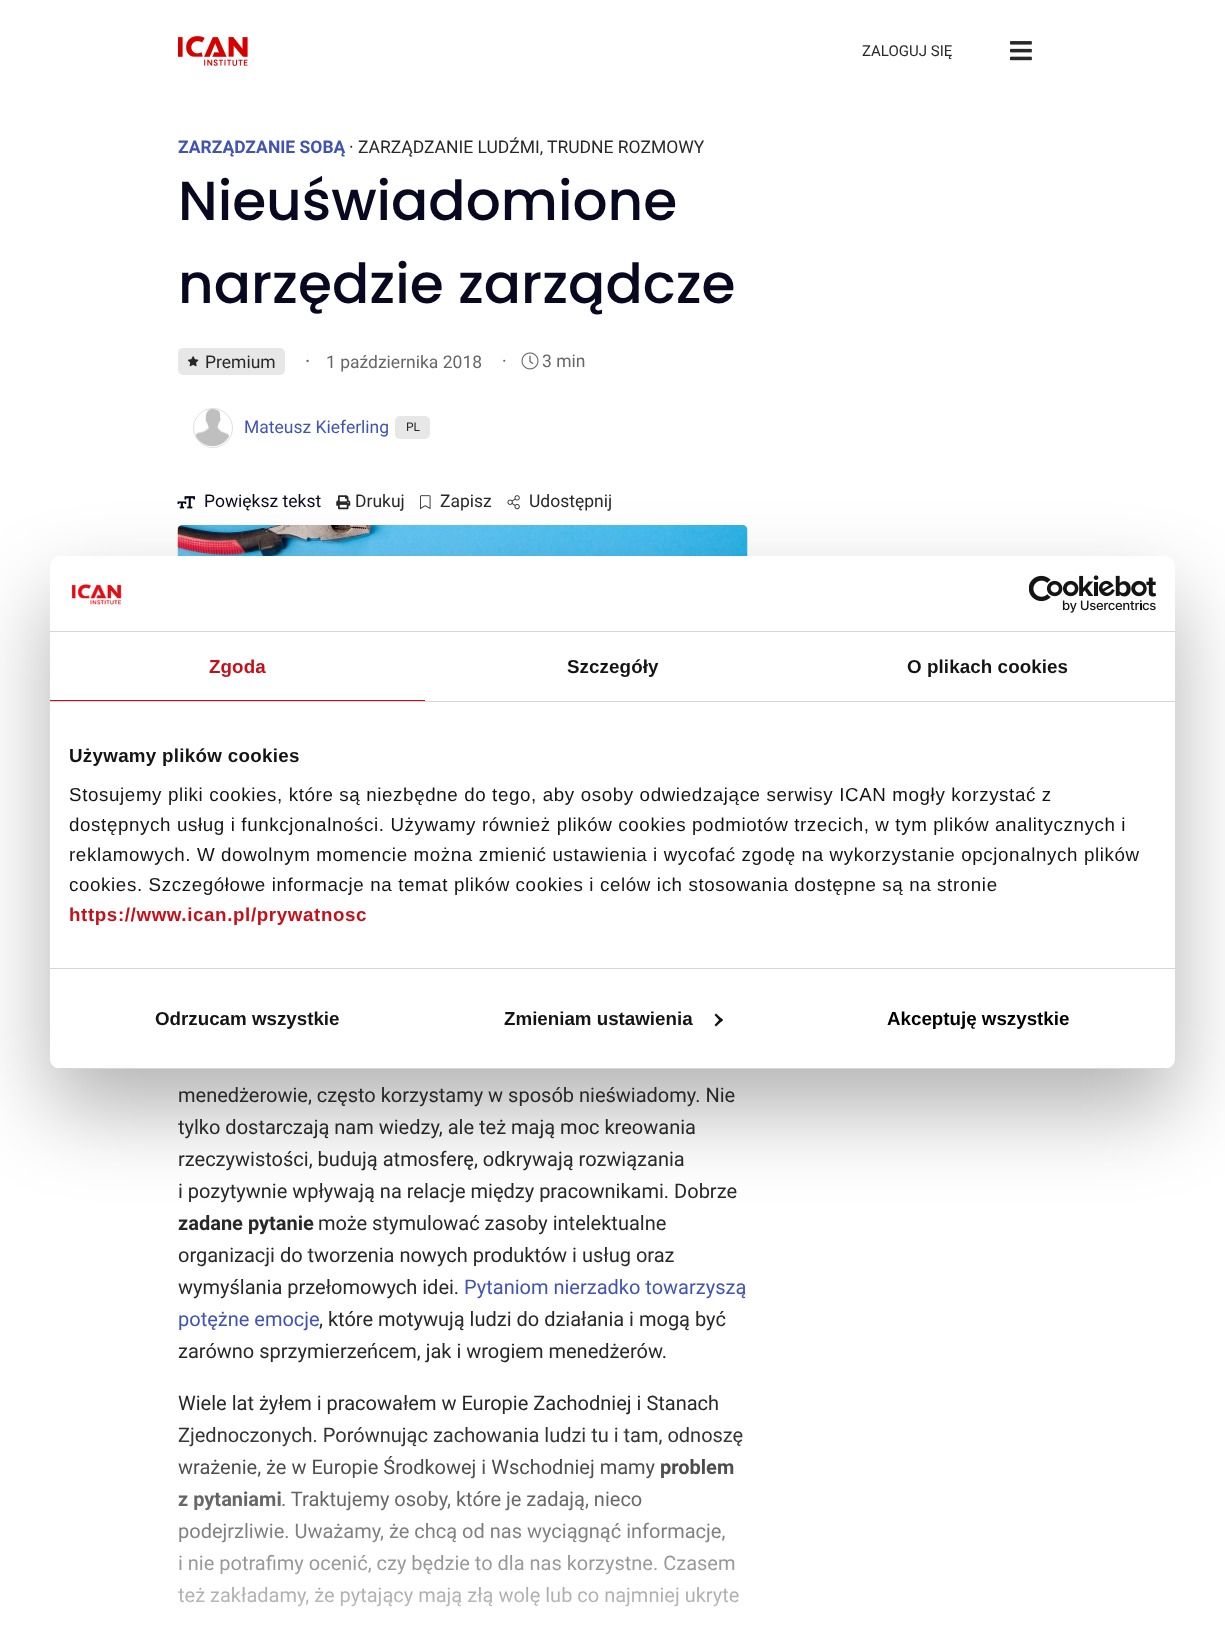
<svg xmlns="http://www.w3.org/2000/svg" width="1225" height="1625" viewBox="0 0 1225 1625">
  <defs>
    <clipPath id="clip1"><rect x="50" y="556" width="1125" height="513" rx="10"/></clipPath>
    <linearGradient id="g1" gradientUnits="userSpaceOnUse" x1="463" y1="1420" x2="463" y2="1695"><stop offset="0" stop-color="#fff" stop-opacity="0"/><stop offset="1" stop-color="#fff"/></linearGradient>
  </defs>
  <rect width="100%" height="100%" fill="#fff"/>
  <image x="178" y="36" width="70" height="30" href="img/1.png"/>
  <image x="1010" y="41" width="22" height="20" href="img/2.png"/>
  <rect x="178" y="348" width="107" height="27" rx="5" fill="#e7e7e7"/>
  <image x="187" y="356" width="12" height="11" href="img/3.png"/>
  <image x="521" y="352" width="18" height="18" href="img/4.png"/>
  <circle cx="213" cy="428" r="19.5" fill="none" stroke="#dfdfdf"/>
  <image x="195" y="409" width="35" height="37" href="img/5.png"/>
  <rect x="395" y="416" width="35" height="23" rx="5" fill="#e7e7e7"/>
  <image x="177" y="496" width="18" height="13" href="img/6.png"/>
  <image x="336" y="495" width="15" height="15" href="img/7.png"/>
  <image x="420" y="495" width="11" height="15" href="img/8.png"/>
  <image x="507" y="495" width="13" height="15" href="img/9.png"/>
  <image x="177" y="525" width="571" height="31" href="img/10.png"/>
  <rect x="50" y="596" width="1125" height="513" rx="10" fill="#0000004d" filter="blur(42.5px)"/>
  <rect x="50" y="556" width="1125" height="513" rx="10" fill="#fff"/>
  <path d="M50 631h1125v1H50z" fill="#d6d6d6"/>
  <image x="71" y="584" width="51" height="21" href="img/11.png"/>
  <image x="1029" y="575" width="127" height="38" href="img/12.png"/>
  <path d="M50 701h1125v1H50z" fill="#d6d6d6"/>
  <path d="M50 700h375v1H50z" fill="#c70f19"/>
  <path d="M50 968h1125v1H50z" fill="#d6d6d6"/>
  <g clip-path="url(#clip1)">
    <path d="M50 1068h1125v1H50z" fill="#d6d6d6"/>
  </g>
  <path d="M716 1013.5L723 1020L721 1022L714.5 1015Z" fill="#141414"/>
  <path d="M721 1018L723 1020L716 1026.5L714.5 1025Z" fill="#141414"/>
  <text x="862" y="56" font-family="Roboto" font-size="15" fill="#282828">ZALOGUJ SIĘ</text>
  <text x="178" y="153" font-family="Roboto" font-size="17.5" font-weight="bold" fill="#4154b1">ZARZĄDZANIE SOBĄ</text>
  <g font-family="Roboto" font-size="17.5" fill="#282828">
    <text x="349" y="153">· ZARZĄDZANIE LUDŹMI,</text>
    <text x="547" y="153">TRUDNE ROZMOWY</text>
  </g>
  <g font-family="Poppins" font-size="55" font-weight="500" fill="#080920">
    <text x="178" y="220">Nieuświadomione</text>
    <text x="178" y="303">narzędzie zarządcze</text>
  </g>
  <text x="205" y="368" font-family="Roboto" font-size="17.5" fill="#282828">Premium</text>
  <text x="305" y="368" font-family="Roboto" font-size="20" fill="#676767">·</text>
  <g font-family="Roboto" font-size="17.5" fill="#676767">
    <text x="326" y="368">1 października 2018</text>
    <text x="502" y="367">·</text>
    <text x="542" y="367">3 min</text>
  </g>
  <text x="244" y="433" font-family="Roboto" font-size="17.5" fill="#4154b1">Mateusz Kieferling</text>
  <text x="406" y="431" font-family="Roboto" font-size="12" fill="#282828">PL</text>
  <text x="204" y="507" font-family="Roboto" font-size="17.5" fill="#080920">Powiększ tekst</text>
  <g font-family="Roboto" font-size="17.5" fill="#282828">
    <text x="355" y="507">Drukuj</text>
    <text x="440" y="507">Zapisz</text>
    <text x="529" y="507">Udostępnij</text>
  </g>
  <g font-family="Roboto" font-size="20" fill="#282828">
    <text x="178" y="1102">menedżerowie, często korzystamy w sposób nieświadomy. Nie</text>
    <text x="178" y="1134">tylko dostarczają nam wiedzy, ale też mają moc kreowania</text>
    <text x="178" y="1166">rzeczywistości, budują atmosferę, odkrywają rozwiązania</text>
    <text x="178" y="1198">i pozytywnie wpływają na relacje między pracownikami. Dobrze</text>
  </g>
  <text x="178" y="1230" font-family="Roboto" font-size="20" font-weight="bold" fill="#282828">zadane pytanie</text>
  <g font-family="Roboto" font-size="20" fill="#282828">
    <text x="318" y="1230">może stymulować zasoby intelektualne</text>
    <text x="178" y="1262">organizacji do tworzenia nowych produktów i usług oraz</text>
    <text x="178" y="1294">wymyślania przełomowych idei.</text>
  </g>
  <g font-family="Roboto" font-size="20" fill="#4154b1">
    <text x="464" y="1294">Pytaniom nierzadko towarzyszą</text>
    <text x="178" y="1326">potężne emocje</text>
  </g>
  <g font-family="Roboto" font-size="20" fill="#282828">
    <text x="319" y="1326">, które motywują ludzi do działania i mogą być</text>
    <text x="178" y="1358">zarówno sprzymierzeńcem, jak i wrogiem menedżerów.</text>
    <text x="178" y="1410">Wiele lat żyłem i pracowałem w Europie Zachodniej i Stanach</text>
    <text x="178" y="1442">Zjednoczonych. Porównując zachowania ludzi tu i tam, odnoszę</text>
    <text x="178" y="1474">wrażenie, że w Europie Środkowej i Wschodniej mamy</text>
  </g>
  <g font-family="Roboto" font-size="20" font-weight="bold" fill="#282828">
    <text x="660" y="1474">problem</text>
    <text x="178" y="1506">z pytaniami</text>
  </g>
  <g font-family="Roboto" font-size="20" fill="#282828">
    <text x="281" y="1506">. Traktujemy osoby, które je zadają, nieco</text>
    <text x="178" y="1538">podejrzliwie. Uważamy, że chcą od nas wyciągnąć informacje,</text>
    <text x="178" y="1570">i nie potrafimy ocenić, czy będzie to dla nas korzystne. Czasem</text>
    <text x="178" y="1602">też zakładamy, że pytający mają złą wolę lub co najmniej ukryte</text>
  </g>
  <path d="M178 1427h564v180H178z" fill="url(#g1)"/>
  <text x="209" y="673" font-family="Liberation Sans" font-size="18.75" font-weight="bold" letter-spacing="0.1" fill="#c70f19">Zgoda</text>
  <g font-family="Liberation Sans" font-size="18.75" font-weight="bold" letter-spacing="0.1" fill="#141414">
    <text x="567" y="673">Szczegóły</text>
    <text x="907" y="673">O plikach cookies</text>
  </g>
  <text x="69" y="762" font-family="Liberation Sans" font-size="18.75" font-weight="bold" letter-spacing="0.3" fill="#141414">Używamy plików cookies</text>
  <g font-family="Liberation Sans" font-size="18.75" letter-spacing="0.62" fill="#141414">
    <text x="69" y="801">Stosujemy pliki cookies, które są niezbędne do tego, aby osoby odwiedzające serwisy ICAN mogły korzystać z</text>
    <text x="69" y="831">dostępnych usług i funkcjonalności. Używamy również plików cookies podmiotów trzecich, w tym plików analitycznych i</text>
    <text x="69" y="861">reklamowych. W dowolnym momencie można zmienić ustawienia i wycofać zgodę na wykorzystanie opcjonalnych plików</text>
    <text x="69" y="891">cookies. Szczegółowe informacje na temat plików cookies i celów ich stosowania dostępne są na stronie</text>
  </g>
  <text x="69" y="921" font-family="Liberation Sans" font-size="18.75" font-weight="bold" letter-spacing="0.62" fill="#c70f19">https://www.ican.pl/prywatnosc</text>
  <g font-family="Liberation Sans" font-size="18.75" font-weight="bold" fill="#141414">
    <text x="155" y="1025">Odrzucam wszystkie</text>
    <text x="504" y="1025">Zmieniam ustawienia</text>
  </g>
  <text x="887" y="1025" font-family="Liberation Sans" font-size="18.75" font-weight="bold" fill="#000">Akceptuję wszystkie</text>
</svg>
